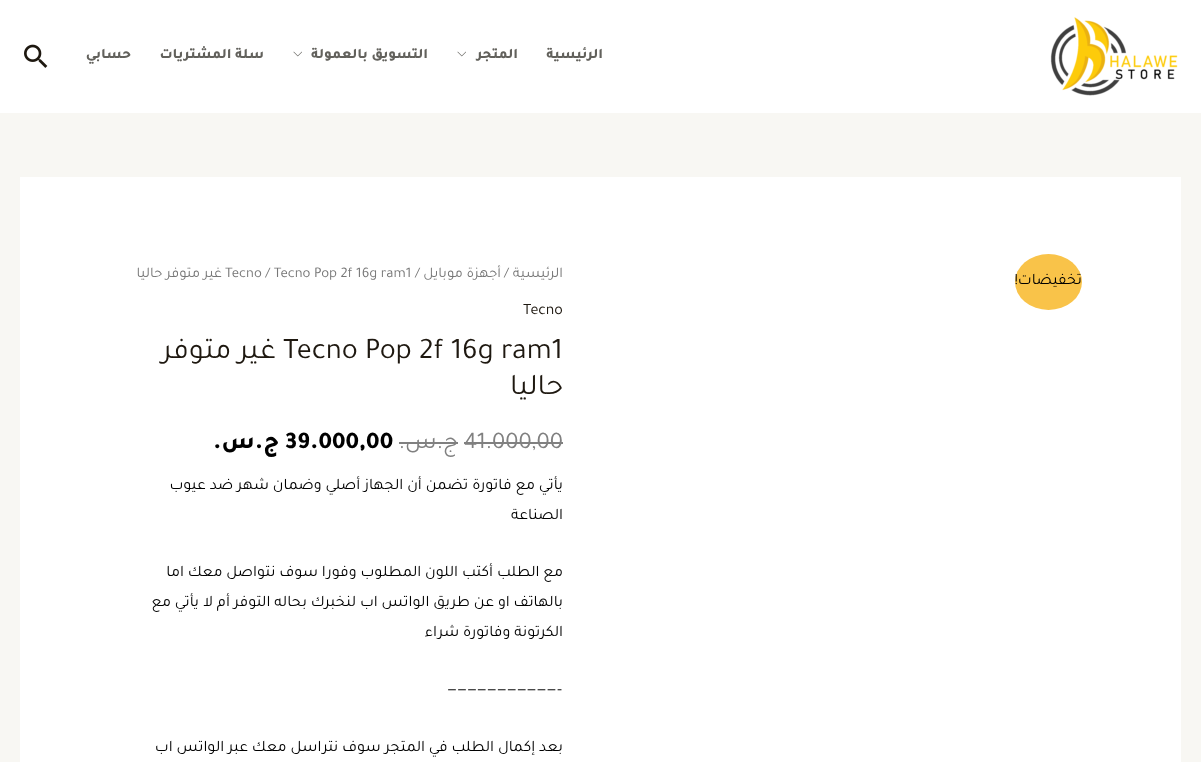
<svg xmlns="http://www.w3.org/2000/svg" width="1201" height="762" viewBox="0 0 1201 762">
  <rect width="100%" height="100%" fill="#f8f7f3"/>
  <path d="M0 0h1201v113H0z" fill="#fff"/>
  <image x="1050" y="17" width="128" height="79" href="img/1.png"/>
  <image x="457" y="51" width="9" height="6" href="img/2.png"/>
  <image x="293" y="51" width="9" height="6" href="img/2.png"/>
  <image x="24" y="44" width="24" height="24" href="img/3.png"/>
  <path d="M20 177h1161v585H20z" fill="#fff"/>
  <ellipse cx="1048.5" cy="282" rx="33.5" ry="28" fill="#f9c349"/>
  <path d="M464 442h99v2H464z" fill="#808080"/>
  <path d="M399 442h59v2H399z" fill="#808080"/>
  <g font-family="Tajawal" font-size="14.5" font-weight="800" direction="rtl" fill="#62615c">
    <text x="603" y="58">الرئيسية</text>
    <text x="518" y="58">المتجر</text>
    <text x="428" y="58">التسويق بالعمولة</text>
    <text x="264" y="58">سلة المشتريات</text>
    <text x="131" y="58">حسابي</text>
  </g>
  <text x="1082" y="284" font-family="Tajawal" font-size="16" direction="rtl" fill="#000">تخفيضات!</text>
  <text x="563" y="277" font-family="Tajawal" font-size="14.75" direction="rtl" fill="#777">الرئيسية</text>
  <text x="504" y="277" font-family="Tajawal" font-size="14.75" fill="#777">/</text>
  <text x="501" y="277" font-family="Tajawal" font-size="14.75" direction="rtl" fill="#777">أجهزة موبايل</text>
  <g font-family="Tajawal" font-size="14.75" fill="#777">
    <text x="415" y="277">/</text>
    <text x="225" y="277">Tecno / Tecno Pop 2f 16g ram1</text>
  </g>
  <text x="222" y="277" font-family="Tajawal" font-size="14.75" direction="rtl" fill="#777">غير متوفر حاليا</text>
  <text x="523" y="314" font-family="Tajawal" font-size="16" fill="#1e1810">Tecno</text>
  <text x="283" y="358" font-family="Tajawal" font-size="30" fill="#1e1810">Tecno Pop 2f 16g ram1</text>
  <g font-family="Tajawal" font-size="30" direction="rtl" fill="#1e1810">
    <text x="276" y="358">غير متوفر</text>
    <text x="563" y="394">حاليا</text>
  </g>
  <text x="464" y="448" font-family="Tajawal" font-size="24" fill="#808080">41.000,00</text>
  <text x="458" y="448" font-family="Tajawal" font-size="24" direction="rtl" fill="#808080">ج.س.</text>
  <text x="285" y="448" font-family="Tajawal" font-size="24" font-weight="800" fill="#000">39.000,00</text>
  <text x="279" y="448" font-family="Tajawal" font-size="24" font-weight="800" direction="rtl" fill="#000">ج.س.</text>
  <g font-family="Tajawal" font-size="16" direction="rtl" fill="#000">
    <text x="563" y="489">يأتي مع فاتورة تضمن أن الجهاز أصلي وضمان شهر ضد عيوب</text>
    <text x="563" y="519">الصناعة</text>
    <text x="563" y="576">مع الطلب أكتب اللون المطلوب وفورا سوف نتواصل معك اما</text>
    <text x="563" y="606">بالهاتف او عن طريق الواتس اب لنخبرك بحاله التوفر أم لا</text>
    <text x="199" y="606">يأتي مع</text>
    <text x="563" y="636">الكرتونة وفاتورة شراء</text>
  </g>
  <text x="447" y="693" font-family="Tajawal" font-size="16" fill="#000">———————————–</text>
  <text x="563" y="751" font-family="Tajawal" font-size="16" direction="rtl" fill="#000">بعد إكمال الطلب في المتجر سوف نتراسل معك عبر الواتس اب</text>
</svg>
